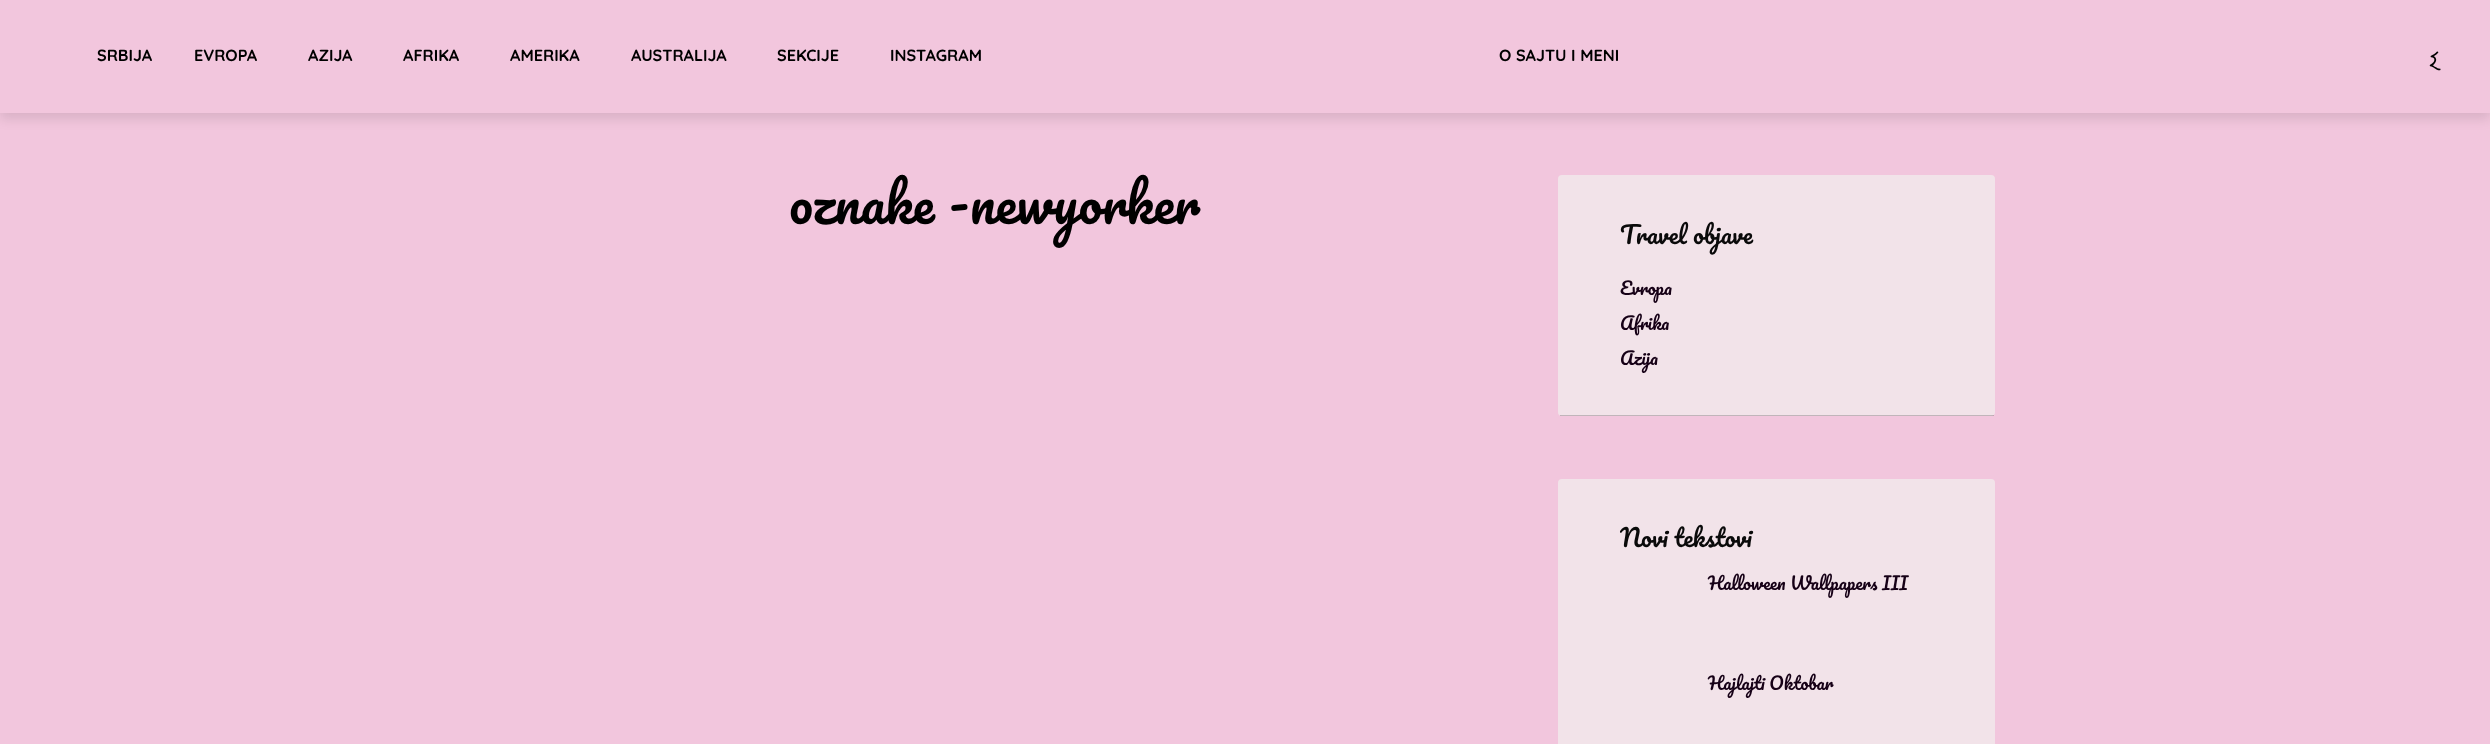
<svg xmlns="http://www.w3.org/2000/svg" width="2490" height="744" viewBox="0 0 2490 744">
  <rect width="100%" height="100%" fill="#f2c6dd"/>
  <path d="M0 6h2490v113H0z" fill="#0000001a" filter="blur(6px)"/>
  <path d="M0 0h2490v113H0z" fill="#f2c6dd"/>
  <rect x="1558" y="175" width="437" height="241" rx="4" fill="#f2e3e9"/>
  <path d="M1560 415h434v1H1560z" fill="#00000033"/>
  <rect x="1558" y="479" width="437" height="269" rx="4" fill="#f2e3e9"/>
  <g font-family="Quicksand" font-size="16.25" font-weight="bold" fill="#000">
    <text x="97" y="61">SRBIJA</text>
    <text x="194" y="61">EVROPA</text>
    <text x="308" y="61">AZIJA</text>
    <text x="403" y="61">AFRIKA</text>
    <text x="510" y="61">AMERIKA</text>
    <text x="631" y="61">AUSTRALIJA</text>
    <text x="777" y="61">SEKCIJE</text>
    <text x="890" y="61">INSTAGRAM</text>
    <text x="1499" y="61">O SAJTU I MENI</text>
  </g>
  <text x="2440" y="68" font-family="Noto Sans Meroitic" font-size="25" direction="rtl" fill="#000">𐦧</text>
  <text x="789" y="224" font-family="Pacifico" font-size="52.5" fill="#000">oznake -newyorker</text>
  <text x="1620" y="244" font-family="Pacifico" font-size="23.75" fill="#0a0a0a">Travel objave</text>
  <g font-family="Pacifico" font-size="17.5" fill="#160016">
    <text x="1620" y="295">Evropa</text>
    <text x="1620" y="330">Afrika</text>
    <text x="1620" y="365">Azija</text>
  </g>
  <text x="1620" y="547" font-family="Pacifico" font-size="23.75" fill="#0a0a0a">Novi tekstovi</text>
  <g font-family="Pacifico" font-size="17.5" fill="#160016">
    <text x="1708" y="590">Halloween Wallpapers III</text>
    <text x="1708" y="690">Hajlajti Oktobar</text>
  </g>
</svg>
